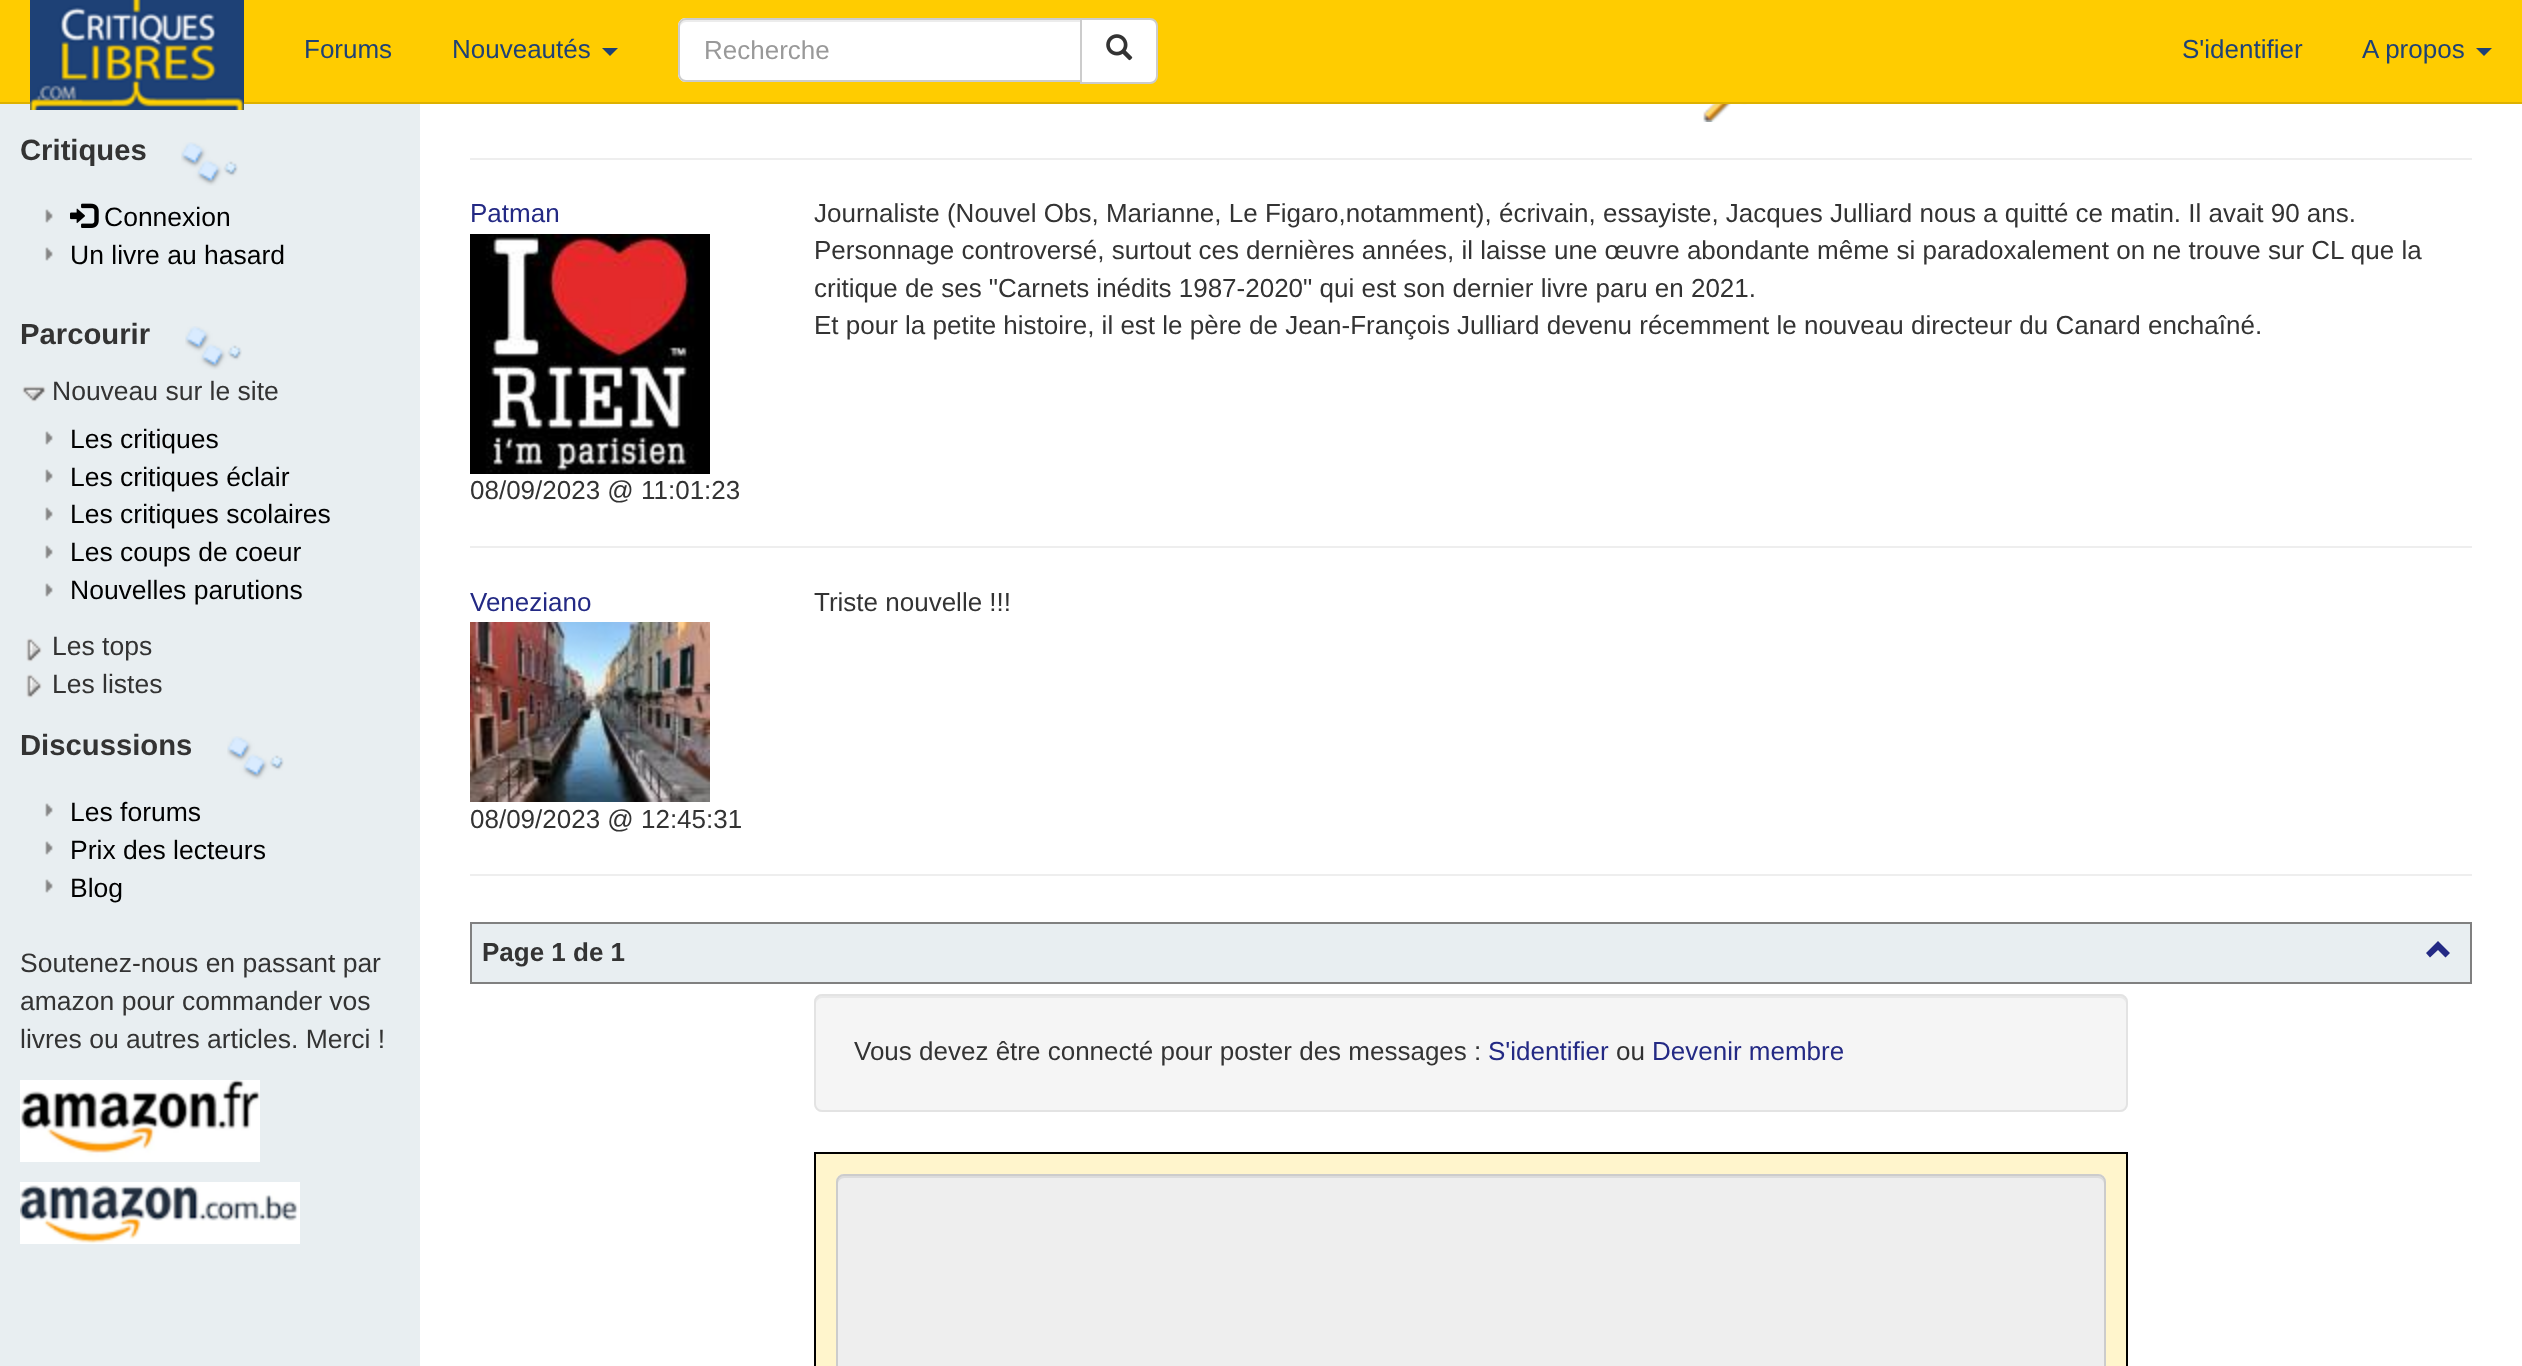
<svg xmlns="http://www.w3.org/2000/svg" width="2522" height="1366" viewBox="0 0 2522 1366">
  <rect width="100%" height="100%" fill="#fff"/>
  <path d="M0 0h2522v102H0z" fill="#fc0"/>
  <path d="M0 102h2522v2H0z" fill="#deb100"/>
  <path d="M0 104h420v1262H0z" fill="#e8eef1"/>
  <image x="30" y="0" width="214" height="110" href="img/1.png"/>
  <path d="M602 48H618L610 56Z" fill="#1e4176"/>
  <path d="M686 18H1082V82H686C681.5 82 678 78.5 678 74V26C678 21.5 681.5 18 686 18Z" fill="#fff"/>
  <path d="M686 22H1080V20H686C681 20 680 24 680 28C680 25 683 22 686 22Z" fill="#ececec"/>
  <path d="M686 19H1081V81H686C682 81 679 78 679 74V26C679 22 682 19 686 19Z" fill="none" stroke="#ccc" stroke-width="2"/>
  <path d="M1081 19H1150C1154 19 1157 22 1157 26V76C1157 80 1154 83 1150 83H1081Z" fill="#fff" stroke="#ccc" stroke-width="2"/>
  <image x="1106" y="34" width="27" height="27" href="img/2.png"/>
  <path d="M2476 48H2492L2484 56Z" fill="#1e4176"/>
  <image x="181" y="142" width="57" height="44" href="img/3.png"/>
  <image x="45" y="209" width="8" height="14" href="img/4.png"/>
  <image x="70" y="203" width="29" height="25" href="img/5.png"/>
  <image x="45" y="247" width="8" height="14" href="img/4.png"/>
  <image x="185" y="326" width="57" height="44" href="img/3.png"/>
  <image x="22" y="386" width="24" height="16" href="img/6.png"/>
  <image x="45" y="431" width="8" height="14" href="img/4.png"/>
  <image x="45" y="469" width="8" height="14" href="img/4.png"/>
  <image x="45" y="507" width="8" height="14" href="img/4.png"/>
  <image x="45" y="545" width="8" height="14" href="img/4.png"/>
  <image x="45" y="583" width="8" height="14" href="img/4.png"/>
  <image x="26" y="638" width="16" height="24" href="img/7.png"/>
  <image x="26" y="674" width="16" height="24" href="img/7.png"/>
  <image x="227" y="736" width="57" height="44" href="img/3.png"/>
  <image x="45" y="803" width="8" height="14" href="img/4.png"/>
  <image x="45" y="841" width="8" height="14" href="img/4.png"/>
  <image x="45" y="879" width="8" height="14" href="img/4.png"/>
  <image x="20" y="1080" width="240" height="82" href="img/8.png"/>
  <image x="20" y="1182" width="280" height="62" href="img/9.png"/>
  <image x="1689" y="104" width="78" height="18" href="img/10.png"/>
  <path d="M470 158h2002v2H470z" fill="#eee"/>
  <image x="470" y="234" width="240" height="240" href="img/11.png"/>
  <path d="M470 546h2002v2H470z" fill="#eee"/>
  <image x="470" y="622" width="240" height="180" href="img/12.png"/>
  <path d="M470 874h2002v2H470z" fill="#eee"/>
  <path d="M471 923h2000v60H471z" fill="#e8eef1" stroke="#808080" stroke-width="2"/>
  <path d="M2450 953L2445.5 957.5L2438 950L2430 957.5L2426 953L2438 941Z" fill="#232984"/>
  <rect x="814" y="994" width="1314" height="118" rx="8" fill="#f5f5f5"/>
  <path d="M822 998H2120C2123 998 2126 1001 2126 1004C2126 1000 2125 996 2120 996H822C817 996 816 1000 816 1004C816 1001 819 998 822 998Z" fill="#e9e9e9"/>
  <rect x="815" y="995" width="1312" height="116" rx="7" fill="none" stroke="#e3e3e3" stroke-width="2"/>
  <path d="M815 1153h1312v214H815z" fill="#fff5cc" stroke="#000" stroke-width="2"/>
  <rect x="836" y="1174" width="1270" height="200" rx="8" fill="#eee"/>
  <path d="M844 1178H2098C2101 1178 2104 1181 2104 1184V1182C2104 1179 2101 1176 2098 1176H844C841 1176 838 1179 838 1182V1184C838 1181 841 1178 844 1178Z" fill="#dcdcdc"/>
  <rect x="837" y="1175" width="1268" height="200" rx="7" fill="none" stroke="#ccc" stroke-width="2"/>
  <g font-family="Liberation Sans" font-size="26" fill="#1e4176">
    <text x="304" y="58">Forums</text>
    <text x="452" y="58">Nouveautés</text>
  </g>
  <text x="704" y="59" font-family="Liberation Sans" font-size="26" fill="#999">Recherche</text>
  <g font-family="Liberation Sans" font-size="26" fill="#1e4176">
    <text x="2182" y="58">S'identifier</text>
    <text x="2362" y="58">A propos</text>
  </g>
  <text x="20" y="160" font-family="Liberation Sans" font-size="29.25" font-weight="bold" fill="#333">Critiques</text>
  <g font-family="Liberation Sans" font-size="26.5" fill="#000">
    <text x="104" y="226">Connexion</text>
    <text x="70" y="264">Un livre au hasard</text>
  </g>
  <text x="20" y="344" font-family="Liberation Sans" font-size="29.25" font-weight="bold" fill="#333">Parcourir</text>
  <text x="52" y="400" font-family="Liberation Sans" font-size="26.5" fill="#333">Nouveau sur le site</text>
  <g font-family="Liberation Sans" font-size="26.5" fill="#000">
    <text x="70" y="448">Les critiques</text>
    <text x="70" y="486">Les critiques éclair</text>
    <text x="70" y="523">Les critiques scolaires</text>
    <text x="70" y="561">Les coups de coeur</text>
    <text x="70" y="599">Nouvelles parutions</text>
  </g>
  <g font-family="Liberation Sans" font-size="26.5" fill="#333">
    <text x="52" y="655">Les tops</text>
    <text x="52" y="693">Les listes</text>
  </g>
  <text x="20" y="755" font-family="Liberation Sans" font-size="29.25" font-weight="bold" fill="#333">Discussions</text>
  <g font-family="Liberation Sans" font-size="26.5" fill="#000">
    <text x="70" y="821">Les forums</text>
    <text x="70" y="859">Prix des lecteurs</text>
    <text x="70" y="897">Blog</text>
  </g>
  <g font-family="Liberation Sans" font-size="26.5" fill="#333">
    <text x="20" y="972">Soutenez-nous en passant par</text>
    <text x="20" y="1010">amazon pour commander vos</text>
    <text x="20" y="1048">livres ou autres articles. Merci !</text>
  </g>
  <text x="470" y="222" font-family="Liberation Sans" font-size="26" fill="#232984">Patman</text>
  <g font-family="Liberation Sans" font-size="26" fill="#333">
    <text x="470" y="499">08/09/2023 @ 11:01:23</text>
    <text x="814" y="222">Journaliste (Nouvel Obs, Marianne, Le Figaro,notamment), écrivain, essayiste, Jacques Julliard nous a quitté ce matin. Il avait 90 ans.</text>
    <text x="814" y="259">Personnage controversé, surtout ces dernières années, il laisse une œuvre abondante même si paradoxalement on ne trouve sur CL que la</text>
    <text x="814" y="297">critique de ses "Carnets inédits 1987-2020" qui est son dernier livre paru en 2021.</text>
    <text x="814" y="334">Et pour la petite histoire, il est le père de Jean-François Julliard devenu récemment le nouveau directeur du Canard enchaîné.</text>
  </g>
  <text x="470" y="611" font-family="Liberation Sans" font-size="26" fill="#232984">Veneziano</text>
  <g font-family="Liberation Sans" font-size="26" fill="#333">
    <text x="470" y="828">08/09/2023 @ 12:45:31</text>
    <text x="814" y="611">Triste nouvelle !!!</text>
  </g>
  <text x="482" y="961" font-family="Liberation Sans" font-size="26" font-weight="bold" fill="#333">Page 1 de 1</text>
  <text x="854" y="1060" font-family="Liberation Sans" font-size="26" fill="#333">Vous devez être connecté pour poster des messages :</text>
  <text x="1488" y="1060" font-family="Liberation Sans" font-size="26" fill="#232984">S'identifier</text>
  <text x="1616" y="1060" font-family="Liberation Sans" font-size="26" fill="#333">ou</text>
  <text x="1652" y="1060" font-family="Liberation Sans" font-size="26" fill="#232984">Devenir membre</text>
</svg>
